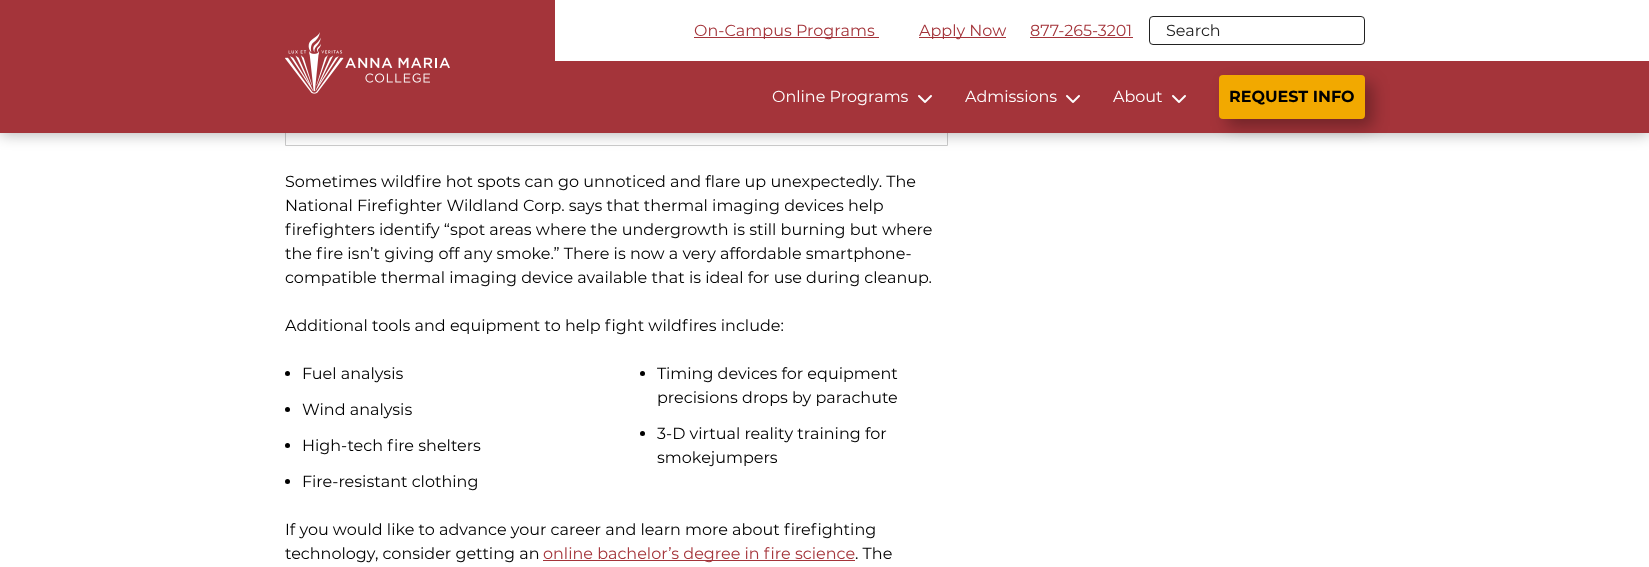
<svg xmlns="http://www.w3.org/2000/svg" width="1649" height="567" viewBox="0 0 1649 567">
  <rect width="100%" height="100%" fill="#fff"/>
  <path d="M285.5 -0.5h662v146H285.5z" fill="none" stroke="#ccc"/>
  <path d="M0 1h1649v133H0z" fill="#0000004d" filter="blur(7.5px)"/>
  <path d="M0 0h1649v133H0z" fill="#a4343a"/>
  <path d="M555 0h1094v61H555z" fill="#fff"/>
  <path d="M694 37h185v1H694z" fill="#a4343a"/>
  <path d="M919 37h87v1H919z" fill="#a4343a"/>
  <path d="M1030 37h103v1H1030z" fill="#a4343a"/>
  <rect x="1149.5" y="16.5" width="215" height="28" rx="3.5" fill="none" stroke="#222"/>
  <image x="285" y="32" width="165" height="62" href="img/1.png"/>
  <image x="918" y="95" width="14" height="8" href="img/2.png"/>
  <image x="1066" y="95" width="14" height="8" href="img/2.png"/>
  <image x="1172" y="95" width="14" height="8" href="img/2.png"/>
  <rect x="1227" y="83" width="146" height="44" rx="4" fill="#0000004d" filter="blur(8px)"/>
  <rect x="1219" y="75" width="146" height="44" rx="4" fill="#f2a900"/>
  <circle cx="287.5" cy="373.5" r="2.5" fill="#000"/>
  <circle cx="642.5" cy="373.5" r="2.5" fill="#000"/>
  <circle cx="287.5" cy="409.5" r="2.5" fill="#000"/>
  <circle cx="287.5" cy="445.5" r="2.5" fill="#000"/>
  <circle cx="642.5" cy="433.5" r="2.5" fill="#000"/>
  <circle cx="287.5" cy="481.5" r="2.5" fill="#000"/>
  <path d="M543 560h312v1H543z" fill="#a4343a"/>
  <g font-family="Montserrat" font-size="16" fill="#a4343a">
    <text x="694" y="36">On-Campus Programs</text>
    <text x="919" y="36">Apply Now</text>
    <text x="1030" y="36">877-265-3201</text>
  </g>
  <text x="1166" y="36" font-family="Montserrat" font-size="16" fill="#222">Search</text>
  <g font-family="Montserrat" font-size="16" fill="#fff">
    <text x="772" y="102">Online Programs</text>
    <text x="965" y="102">Admissions</text>
    <text x="1113" y="102">About</text>
  </g>
  <text x="1229" y="102" font-family="Montserrat" font-size="16" font-weight="bold" fill="#000">REQUEST INFO</text>
  <g font-family="Montserrat" font-size="16" fill="#000">
    <text x="285" y="187">Sometimes wildfire hot spots can go unnoticed and flare up unexpectedly. The</text>
    <text x="285" y="211">National Firefighter Wildland Corp. says that thermal imaging devices help</text>
    <text x="285" y="235">firefighters identify “spot areas where the undergrowth is still burning but where</text>
    <text x="285" y="259">the fire isn’t giving off any smoke.” There is now a very affordable smartphone-</text>
    <text x="285" y="283">compatible thermal imaging device available that is ideal for use during cleanup.</text>
    <text x="285" y="331">Additional tools and equipment to help fight wildfires include:</text>
    <text x="302" y="379">Fuel analysis</text>
    <text x="657" y="379">Timing devices for equipment</text>
    <text x="657" y="403">precisions drops by parachute</text>
    <text x="302" y="415">Wind analysis</text>
    <text x="302" y="451">High-tech fire shelters</text>
    <text x="657" y="439">3-D virtual reality training for</text>
    <text x="657" y="463">smokejumpers</text>
    <text x="302" y="487">Fire-resistant clothing</text>
    <text x="285" y="535">If you would like to advance your career and learn more about firefighting</text>
    <text x="285" y="559">technology, consider getting an</text>
  </g>
  <text x="543" y="559" font-family="Montserrat" font-size="16" fill="#a4343a">online bachelor’s degree in fire science</text>
  <text x="855" y="559" font-family="Montserrat" font-size="16" fill="#000">. The</text>
</svg>
